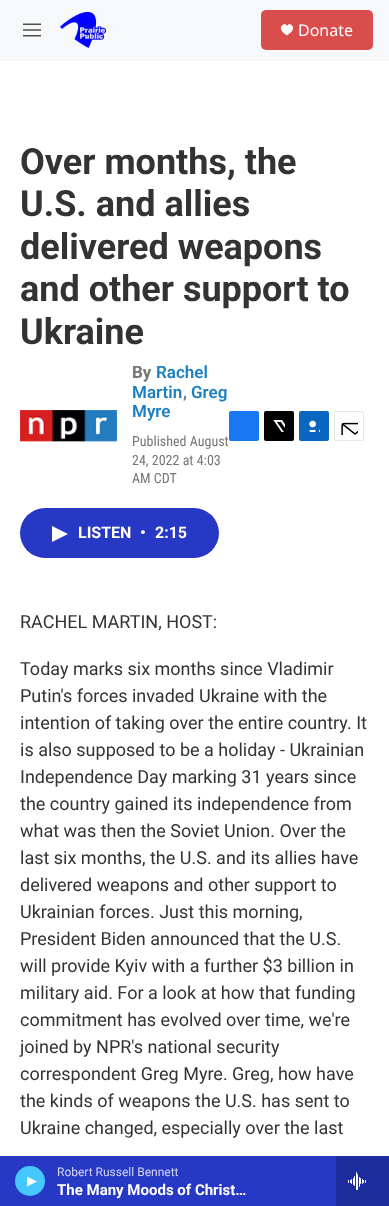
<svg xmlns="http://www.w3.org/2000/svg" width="389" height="1206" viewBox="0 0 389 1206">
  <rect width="100%" height="100%" fill="#fff"/>
  <path d="M0 0h389v60H0z" fill="#f6f8fa"/>
  <path d="M0 60h389v1H0z" fill="#f5f5f5"/>
  <image x="23" y="23" width="18" height="14" href="img/1.png"/>
  <image x="60" y="11" width="47" height="37" href="img/2.png"/>
  <rect x="261" y="10" width="112" height="40" rx="5" fill="#d94d4c"/>
  <path d="M287 26C285 21 274.5 28 287 35.5C299.5 28 289 21 287 26Z" fill="#fff"/>
  <path d="M0 1156h336v50H0z" fill="#2638c4"/>
  <circle cx="30" cy="1181" r="15" fill="#46c8ff"/>
  <path d="M27 1176.5L37 1181.5L27 1186.5Z" fill="#fff"/>
  <path d="M336 1156h53v50H336z" fill="#1e2d9d"/>
  <image x="348" y="1172" width="18" height="18" href="img/3.png"/>
  <image x="20" y="410" width="97" height="32" href="img/4.png"/>
  <rect x="229" y="411" width="30" height="30" rx="2" fill="#1778f2"/>
  <rect x="264" y="411" width="30" height="30" rx="2" fill="#000"/>
  <image x="273" y="420" width="12" height="12" href="img/5.png"/>
  <rect x="299" y="411" width="30" height="30" rx="2" fill="#0a66c1"/>
  <image x="309" y="420" width="11" height="12" href="img/6.png"/>
  <rect x="334.5" y="411.5" width="29" height="29" rx="1.5" fill="none" stroke="#e6e6e6"/>
  <image x="341" y="422" width="17" height="13" href="img/7.png"/>
  <rect x="20" y="508" width="199" height="50" rx="25" fill="#2638c4"/>
  <path d="M52 526L68 534L52 542Z" fill="#fff"/>
  <text x="298" y="36" font-family="Noto Sans" font-size="16" fill="#fff">Donate</text>
  <text x="57" y="1176" font-family="Roboto" font-size="12" fill="#d4d7f3">Robert Russell Bennett</text>
  <text x="57" y="1195" font-family="'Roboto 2'" font-size="15" font-weight="bold" fill="#fff">The Many Moods of Christ…</text>
  <g font-family="Roboto" font-size="36" font-weight="bold" fill="#333">
    <text x="20" y="174">Over months, the</text>
    <text x="20" y="216">U.S. and allies</text>
    <text x="20" y="259">delivered weapons</text>
    <text x="20" y="301">and other support to</text>
    <text x="20" y="344">Ukraine</text>
  </g>
  <text x="132" y="378" font-family="Roboto" font-size="17" font-weight="bold" fill="#767676">By</text>
  <g font-family="Roboto" font-size="17" font-weight="600" fill="#1a7fc3">
    <text x="156" y="378">Rachel</text>
    <text x="132" y="398">Martin</text>
  </g>
  <text x="183" y="398" font-family="Roboto" font-size="17" font-weight="600" fill="#767676">,</text>
  <g font-family="Roboto" font-size="17" font-weight="600" fill="#1a7fc3">
    <text x="191" y="398">Greg</text>
    <text x="132" y="417">Myre</text>
  </g>
  <g font-family="Roboto Condensed" font-size="14" fill="#767676">
    <text x="132" y="446">Published August</text>
    <text x="132" y="465">24, 2022 at 4:03</text>
    <text x="132" y="483">AM CDT</text>
  </g>
  <g font-family="'Roboto 2'" font-size="16" font-weight="bold" fill="#fff">
    <text x="78" y="538">LISTEN</text>
    <text x="140" y="538">•</text>
    <text x="155" y="538">2:15</text>
  </g>
  <g font-family="Roboto" font-size="18" fill="#333">
    <text x="20" y="628">RACHEL MARTIN, HOST:</text>
    <text x="20" y="675">Today marks six months since Vladimir</text>
    <text x="20" y="702">Putin's forces invaded Ukraine with the</text>
    <text x="20" y="729">intention of taking over the entire country. It</text>
    <text x="20" y="756">is also supposed to be a holiday - Ukrainian</text>
    <text x="20" y="783">Independence Day marking 31 years since</text>
    <text x="20" y="810">the country gained its independence from</text>
    <text x="20" y="837">what was then the Soviet Union. Over the</text>
    <text x="20" y="864">last six months, the U.S. and its allies have</text>
    <text x="20" y="891">delivered weapons and other support to</text>
    <text x="20" y="918">Ukrainian forces. Just this morning,</text>
    <text x="20" y="945">President Biden announced that the U.S.</text>
    <text x="20" y="972">will provide Kyiv with a further $3 billion in</text>
    <text x="20" y="999">military aid. For a look at how that funding</text>
    <text x="20" y="1026">commitment has evolved over time, we're</text>
    <text x="20" y="1053">joined by NPR's national security</text>
    <text x="20" y="1080">correspondent Greg Myre. Greg, how have</text>
    <text x="20" y="1107">the kinds of weapons the U.S. has sent to</text>
    <text x="20" y="1134">Ukraine changed, especially over the last</text>
  </g>
</svg>
